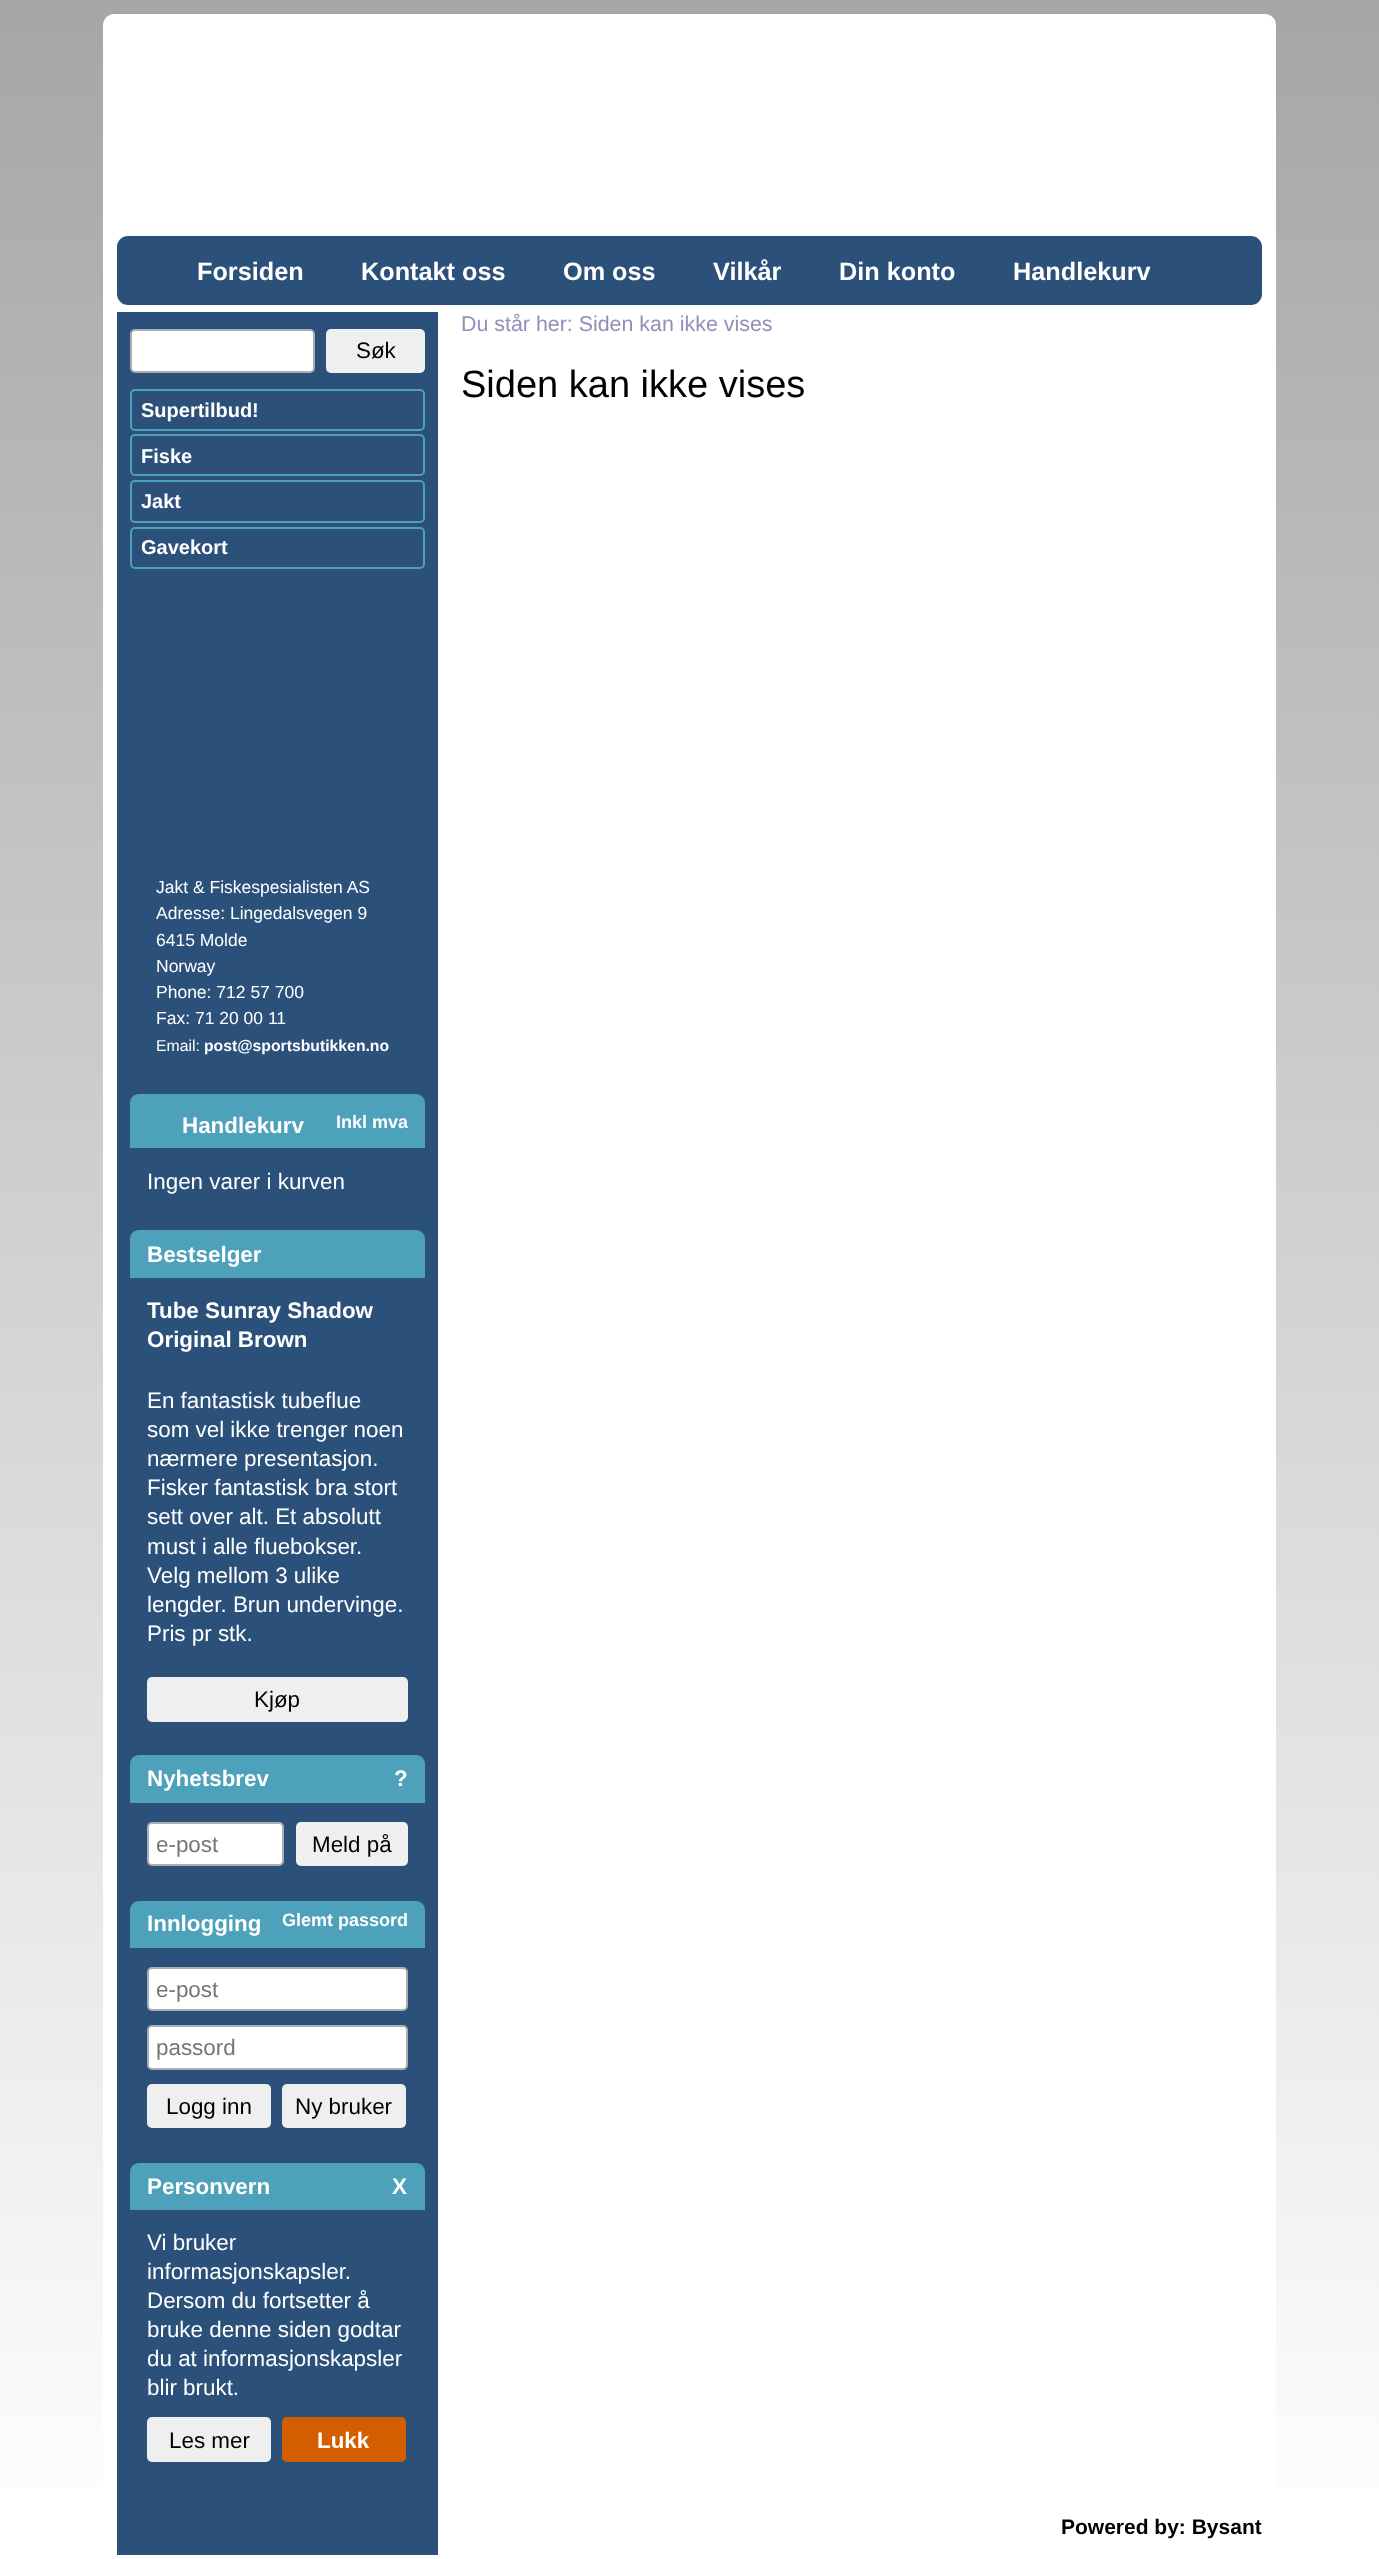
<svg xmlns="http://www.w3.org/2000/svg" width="1379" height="2559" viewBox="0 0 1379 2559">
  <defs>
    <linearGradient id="g1" gradientUnits="userSpaceOnUse" x1="689" y1="0" x2="690" y2="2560"><stop offset="0" stop-color="#a6a6a6"/><stop offset="1" stop-color="#fff"/></linearGradient>
  </defs>
  <rect width="100%" height="100%" fill="#fff"/>
  <path d="M0 0h1379v2488H0z" fill="url(#g1)"/>
  <path d="M114 14H1265C1271 14 1276 19 1276 25V312H103V25C103 19 108 14 114 14Z" fill="#fff"/>
  <rect x="117" y="236" width="1145" height="69" rx="11" fill="#2b507a"/>
  <path d="M103 312h1173v2176H103z" fill="#fff"/>
  <path d="M117 312h321v2243H117z" fill="#2b507a"/>
  <rect x="131" y="330" width="183" height="42" rx="4" fill="#fff" stroke="#abadb3" stroke-width="2"/>
  <rect x="326" y="329" width="99" height="44" rx="5" fill="#efefef"/>
  <rect x="131" y="390" width="293" height="40" rx="4" fill="none" stroke="#4da1bb" stroke-width="2"/>
  <rect x="131" y="435" width="293" height="40" rx="4" fill="none" stroke="#4da1bb" stroke-width="2"/>
  <rect x="131" y="481" width="293" height="41" rx="4" fill="none" stroke="#4da1bb" stroke-width="2"/>
  <rect x="131" y="528" width="293" height="40" rx="4" fill="none" stroke="#4da1bb" stroke-width="2"/>
  <path d="M139 1094H416C421 1094 425 1098 425 1103V1148H130V1103C130 1098 134 1094 139 1094Z" fill="#4da1bb"/>
  <path d="M139 1230H416C421 1230 425 1234 425 1239V1278H130V1239C130 1234 134 1230 139 1230Z" fill="#4da1bb"/>
  <rect x="147" y="1677" width="261" height="45" rx="5" fill="#efefef"/>
  <path d="M139 1755H416C421 1755 425 1759 425 1764V1803H130V1764C130 1759 134 1755 139 1755Z" fill="#4da1bb"/>
  <rect x="148" y="1823" width="135" height="42" rx="4" fill="#fff" stroke="#abadb3" stroke-width="2"/>
  <rect x="296" y="1822" width="112" height="44" rx="5" fill="#efefef"/>
  <path d="M139 1901H416C421 1901 425 1905 425 1910V1948H130V1910C130 1905 134 1901 139 1901Z" fill="#4da1bb"/>
  <rect x="148" y="1968" width="259" height="42" rx="4" fill="#fff" stroke="#abadb3" stroke-width="2"/>
  <rect x="148" y="2026" width="259" height="43" rx="4" fill="#fff" stroke="#abadb3" stroke-width="2"/>
  <rect x="147" y="2084" width="124" height="44" rx="5" fill="#efefef"/>
  <rect x="282" y="2084" width="124" height="44" rx="5" fill="#efefef"/>
  <path d="M139 2163H416C421 2163 425 2167 425 2172V2210H130V2172C130 2167 134 2163 139 2163Z" fill="#4da1bb"/>
  <rect x="147" y="2417" width="124" height="45" rx="5" fill="#efefef"/>
  <rect x="282" y="2417" width="124" height="45" rx="5" fill="#d25e00"/>
  <g font-family="Liberation Sans" font-size="25.25" font-weight="bold" fill="#fff">
    <text x="197" y="280">Forsiden</text>
    <text x="361" y="280">Kontakt oss</text>
    <text x="563" y="280">Om oss</text>
    <text x="713" y="280">Vilkår</text>
    <text x="839" y="280">Din konto</text>
    <text x="1013" y="280">Handlekurv</text>
  </g>
  <text x="356" y="358" font-family="Liberation Sans" font-size="22.4" fill="#000">Søk</text>
  <g font-family="Liberation Sans" font-size="20" font-weight="bold" fill="#fff">
    <text x="141" y="417">Supertilbud!</text>
    <text x="141" y="463">Fiske</text>
    <text x="141" y="508">Jakt</text>
    <text x="141" y="554">Gavekort</text>
  </g>
  <g font-family="Liberation Sans" font-size="17.5" fill="#fff">
    <text x="156" y="893">Jakt &amp; Fiskespesialisten AS</text>
    <text x="156" y="919">Adresse: Lingedalsvegen 9</text>
    <text x="156" y="946">6415 Molde</text>
    <text x="156" y="972">Norway</text>
    <text x="156" y="998">Phone: 712 57 700</text>
    <text x="156" y="1024">Fax: 71 20 00 11</text>
  </g>
  <text x="156" y="1051" font-family="Liberation Sans" font-size="15.75" fill="#fff">Email:</text>
  <text x="204" y="1051" font-family="Liberation Sans" font-size="15.75" font-weight="bold" fill="#fff">post@sportsbutikken.no</text>
  <text x="182" y="1133" font-family="Liberation Sans" font-size="22.4" font-weight="bold" fill="#fff">Handlekurv</text>
  <text x="336" y="1128" font-family="Liberation Sans" font-size="18" font-weight="bold" fill="#fff">Inkl mva</text>
  <text x="147" y="1189" font-family="Liberation Sans" font-size="22.4" fill="#fff">Ingen varer i kurven</text>
  <g font-family="Liberation Sans" font-size="22.4" font-weight="bold" fill="#fff">
    <text x="147" y="1262">Bestselger</text>
    <text x="147" y="1318">Tube Sunray Shadow</text>
    <text x="147" y="1347">Original Brown</text>
  </g>
  <g font-family="Liberation Sans" font-size="22.4" fill="#fff">
    <text x="147" y="1408">En fantastisk tubeflue</text>
    <text x="147" y="1437">som vel ikke trenger noen</text>
    <text x="147" y="1466">nærmere presentasjon.</text>
    <text x="147" y="1495">Fisker fantastisk bra stort</text>
    <text x="147" y="1524">sett over alt. Et absolutt</text>
    <text x="147" y="1554">must i alle fluebokser.</text>
    <text x="147" y="1583">Velg mellom 3 ulike</text>
    <text x="147" y="1612">lengder. Brun undervinge.</text>
    <text x="147" y="1641">Pris pr stk.</text>
  </g>
  <text x="254" y="1707" font-family="Liberation Sans" font-size="22.4" fill="#000">Kjøp</text>
  <g font-family="Liberation Sans" font-size="22.4" font-weight="bold" fill="#fff">
    <text x="147" y="1786">Nyhetsbrev</text>
    <text x="394" y="1786">?</text>
  </g>
  <text x="156" y="1852" font-family="Liberation Sans" font-size="22.4" fill="#757575">e-post</text>
  <text x="312" y="1852" font-family="Liberation Sans" font-size="22.4" fill="#000">Meld på</text>
  <text x="147" y="1931" font-family="Liberation Sans" font-size="22.4" font-weight="bold" fill="#fff">Innlogging</text>
  <text x="282" y="1926" font-family="Liberation Sans" font-size="18" font-weight="bold" fill="#fff">Glemt passord</text>
  <g font-family="Liberation Sans" font-size="22.4" fill="#757575">
    <text x="156" y="1997">e-post</text>
    <text x="156" y="2055">passord</text>
  </g>
  <g font-family="Liberation Sans" font-size="22.4" fill="#000">
    <text x="166" y="2114">Logg inn</text>
    <text x="295" y="2114">Ny bruker</text>
  </g>
  <g font-family="Liberation Sans" font-size="22.4" font-weight="bold" fill="#fff">
    <text x="147" y="2194">Personvern</text>
    <text x="392" y="2194">X</text>
  </g>
  <g font-family="Liberation Sans" font-size="22.4" fill="#fff">
    <text x="147" y="2250">Vi bruker</text>
    <text x="147" y="2279">informasjonskapsler.</text>
    <text x="147" y="2308">Dersom du fortsetter å</text>
    <text x="147" y="2337">bruke denne siden godtar</text>
    <text x="147" y="2366">du at informasjonskapsler</text>
    <text x="147" y="2395">blir brukt.</text>
  </g>
  <text x="169" y="2448" font-family="Liberation Sans" font-size="22.4" fill="#000">Les mer</text>
  <text x="317" y="2448" font-family="Liberation Sans" font-size="22.4" font-weight="bold" fill="#fff">Lukk</text>
  <text x="461" y="331" font-family="Liberation Sans" font-size="21.4" fill="#8f8fbc">Du står her: Siden kan ikke vises</text>
  <text x="461" y="397" font-family="Liberation Sans" font-size="38" fill="#000">Siden kan ikke vises</text>
  <text x="1061" y="2534" font-family="Liberation Sans" font-size="21" font-weight="bold" fill="#000">Powered by: Bysant</text>
</svg>
